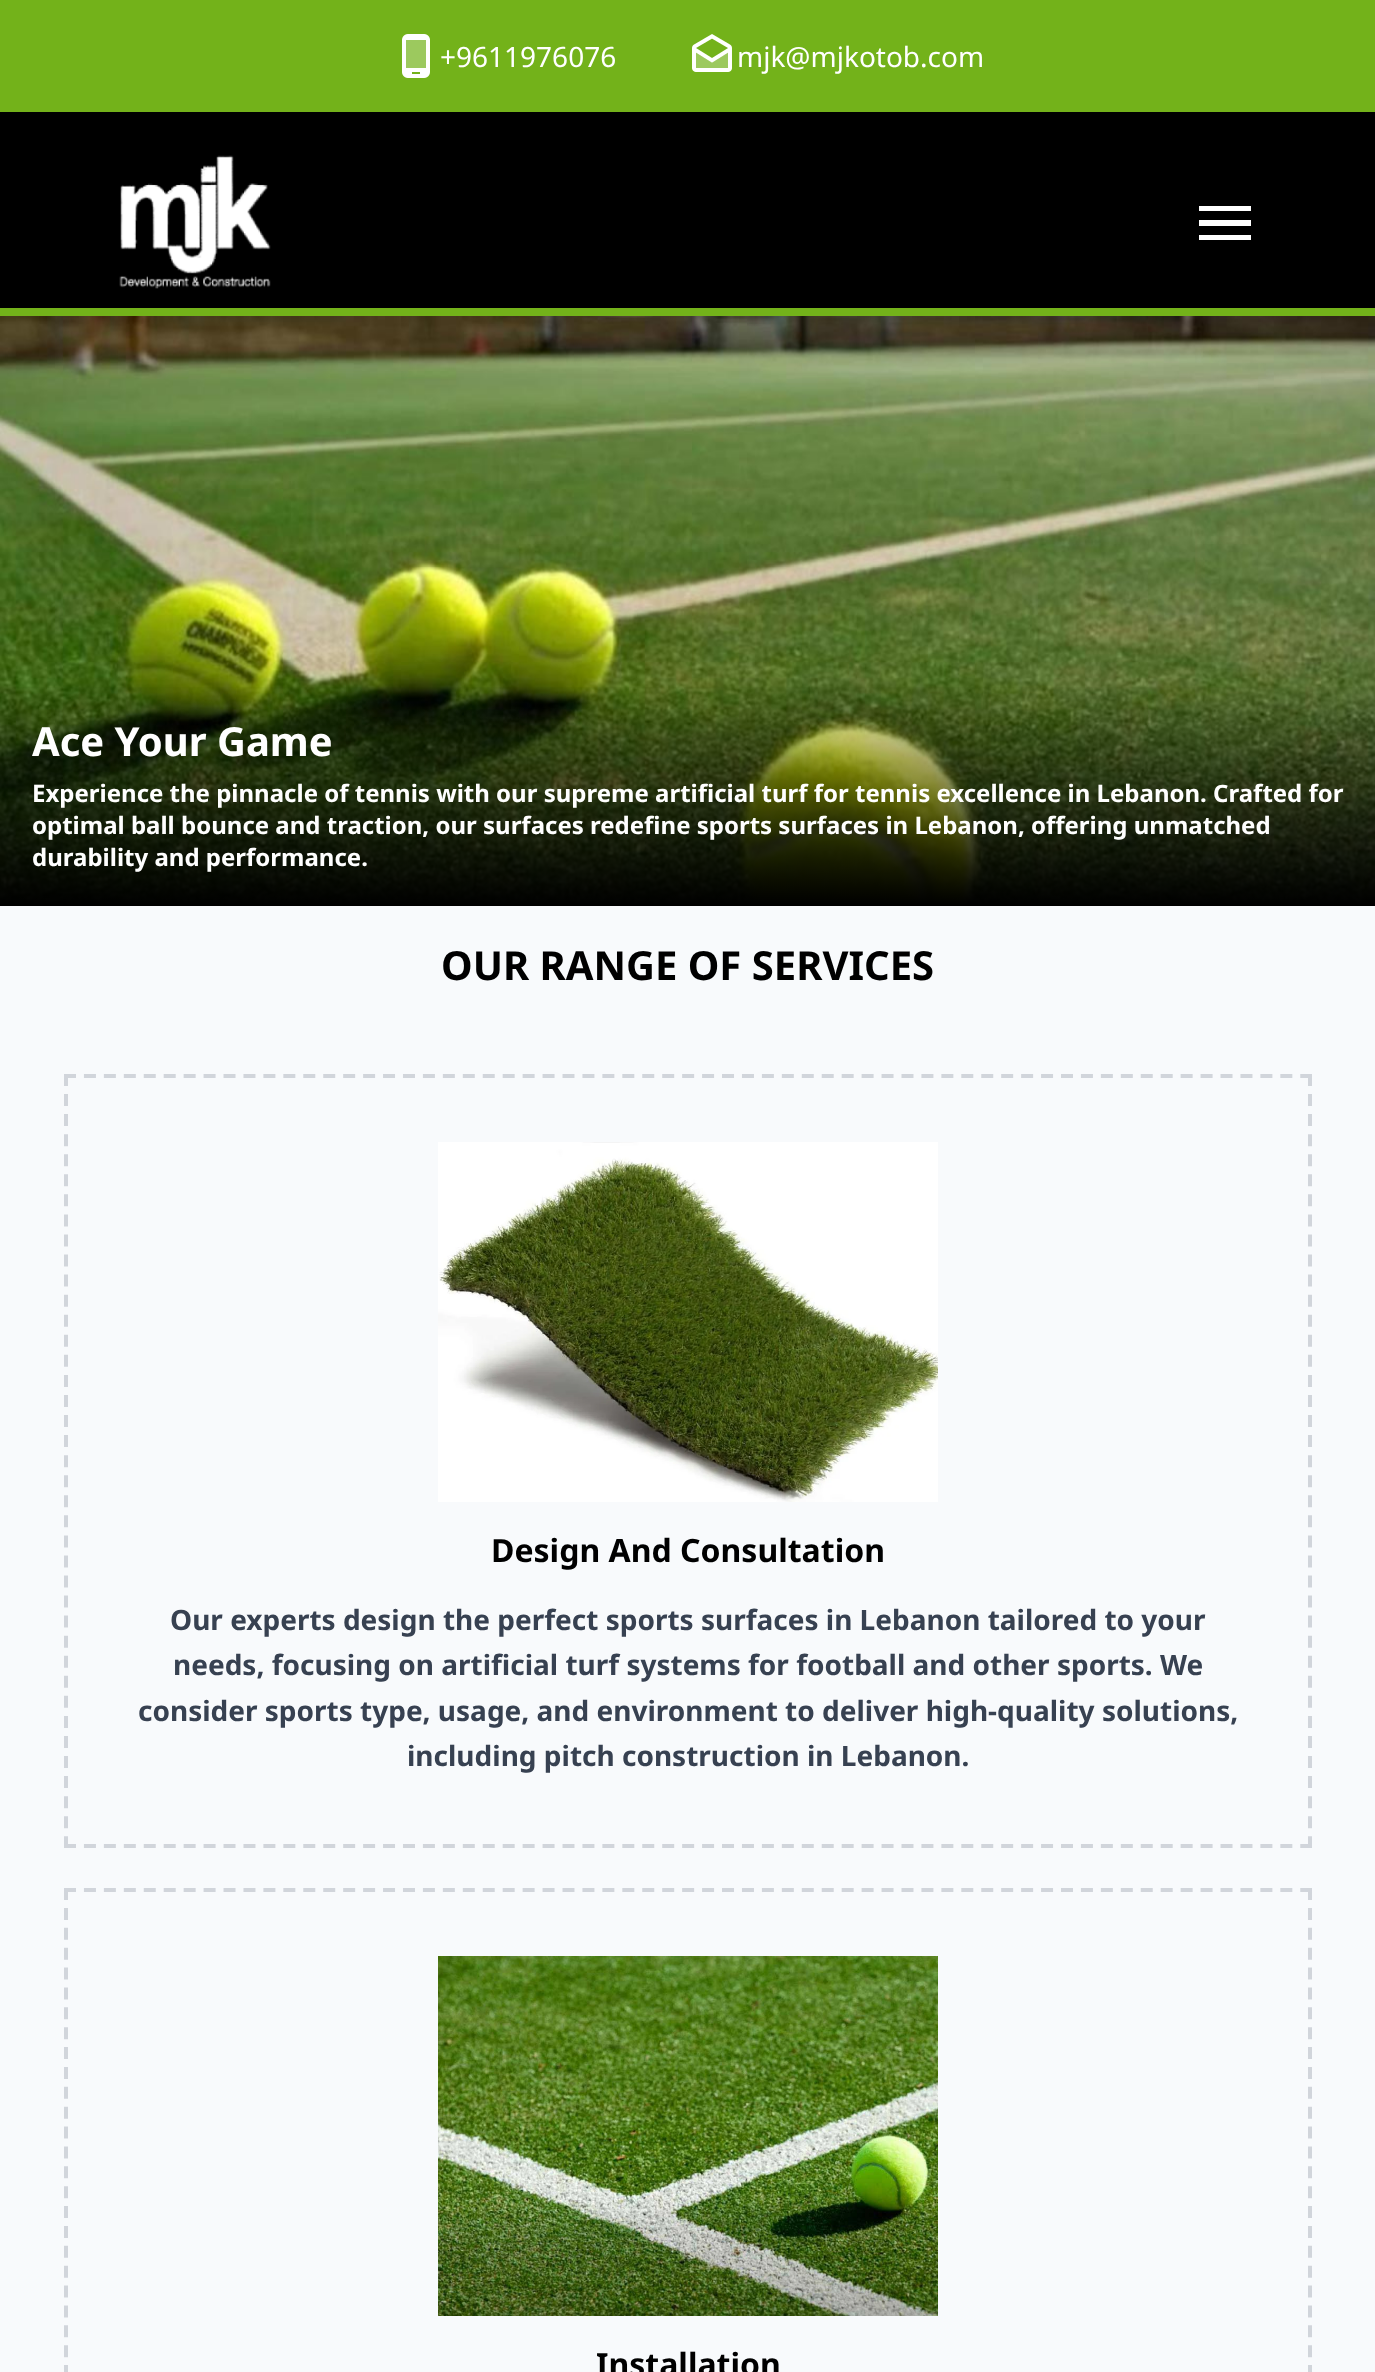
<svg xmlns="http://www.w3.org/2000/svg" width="1375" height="2372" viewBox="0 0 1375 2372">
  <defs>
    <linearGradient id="g1" gradientUnits="userSpaceOnUse" x1="688" y1="906" x2="688" y2="682"><stop offset="0" stop-color="#000"/><stop offset="1" stop-color="#000" stop-opacity="0"/></linearGradient>
  </defs>
  <rect width="100%" height="100%" fill="#000"/>
  <path d="M0 308h1375v8H0z" fill="#73b21a"/>
  <path d="M0 0h1375v112H0z" fill="#73b21a"/>
  <image x="402" y="34" width="28" height="44" href="img/1.png"/>
  <image x="692" y="34" width="40" height="38" href="img/2.png"/>
  <image x="119" y="155" width="152" height="134" href="img/3.png"/>
  <path d="M1199 240H1251V235H1199ZM1199 226H1251V220H1199ZM1199 206V211H1251V206Z" fill="#fff"/>
  <image x="0" y="316" width="1375" height="589" href="img/4.png"/>
  <path d="M0 687h1375v218H0z" fill="url(#g1)"/>
  <path d="M0 906h1375v1466H0z" fill="#f8fafc"/>
  <path d="M64 1076H1312" fill="none" stroke="#d1d5db" stroke-width="4" stroke-dasharray="12 7.94"/>
  <path d="M1310 1074V1848" fill="none" stroke="#d1d5db" stroke-width="4" stroke-dasharray="12 8.06"/>
  <path d="M64 1846H1312" fill="none" stroke="#d1d5db" stroke-width="4" stroke-dasharray="12 7.94"/>
  <path d="M66 1074V1848" fill="none" stroke="#d1d5db" stroke-width="4" stroke-dasharray="12 8.06"/>
  <image x="438" y="1142" width="500" height="360" href="img/5.png"/>
  <path d="M64 1890H1312" fill="none" stroke="#d1d5db" stroke-width="4" stroke-dasharray="12 7.94"/>
  <path d="M1310 1888V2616" fill="none" stroke="#d1d5db" stroke-width="4" stroke-dasharray="12 7.88"/>
  <path d="M66 1888V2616" fill="none" stroke="#d1d5db" stroke-width="4" stroke-dasharray="12 7.88"/>
  <image x="438" y="1956" width="500" height="360" href="img/6.png"/>
  <g font-family="Noto Sans" font-size="28" fill="#fff">
    <text x="440" y="67">+9611976076</text>
    <text x="737" y="67">mjk@mjkotob.com</text>
  </g>
  <text x="32" y="756" font-family="Noto Sans" font-size="40" font-weight="bold" fill="#fff">Ace Your Game</text>
  <g font-family="Noto Sans" font-size="24" font-weight="bold" fill="#fff">
    <text x="32" y="802">Experience the pinnacle of tennis with our supreme artificial turf for tennis excellence in Lebanon. Crafted for</text>
    <text x="32" y="834">optimal ball bounce and traction, our surfaces redefine sports surfaces in Lebanon, offering unmatched</text>
    <text x="32" y="866">durability and performance.</text>
  </g>
  <text x="441" y="980" font-family="Noto Sans" font-size="40" font-weight="bold" fill="#000">OUR RANGE OF SERVICES</text>
  <text x="491" y="1562" font-family="Noto Sans" font-size="32" font-weight="bold" fill="#000">Design And Consultation</text>
  <g font-family="Noto Sans" font-size="28" font-weight="bold" fill="#374151">
    <text x="170" y="1630">Our experts design the perfect sports surfaces in Lebanon tailored to your</text>
    <text x="173" y="1675">needs, focusing on artificial turf systems for football and other sports. We</text>
    <text x="138" y="1721">consider sports type, usage, and environment to deliver high-quality solutions,</text>
    <text x="407" y="1766">including pitch construction in Lebanon.</text>
  </g>
  <text x="596" y="2376" font-family="Noto Sans" font-size="32" font-weight="bold" fill="#000">Installation</text>
</svg>
